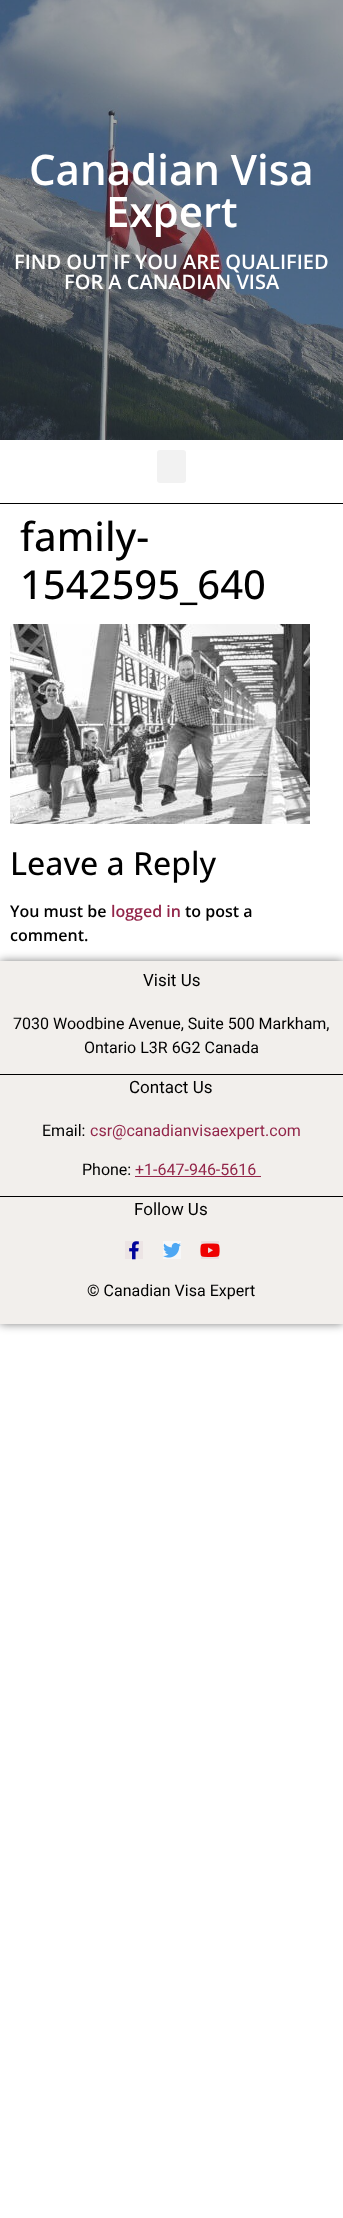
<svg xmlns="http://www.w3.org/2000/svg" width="343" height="2218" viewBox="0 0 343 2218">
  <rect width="100%" height="100%" fill="#fff"/>
  <image x="0" y="0" width="343" height="440" href="img/1.png"/>
  <path d="M0 503h343v1H0z" fill="#000"/>
  <rect x="157" y="450" width="29" height="33" rx="3" fill="#f2f2f2"/>
  <image x="10" y="624" width="300" height="200" href="img/2.png"/>
  <path d="M0 961h343v363H0z" fill="#00000080" filter="blur(5px)"/>
  <path d="M0 961h343v363H0z" fill="#f2efec"/>
  <path d="M0 1074h343v1H0z" fill="#000"/>
  <path d="M0 1196h343v1H0z" fill="#000"/>
  <path d="M135 1176h126v1H135z" fill="#922549"/>
  <path d="M125 1241h18v18H125z" fill="#ece4e4"/>
  <image x="129" y="1241" width="10" height="19" href="img/3.png"/>
  <path d="M163 1241h18v18H163z" fill="#f6f7f8"/>
  <image x="163" y="1242" width="18" height="16" href="img/4.png"/>
  <path d="M201 1241h18v18H201z" fill="#eadfdf"/>
  <image x="200" y="1243" width="20" height="14" href="img/5.png"/>
  <g font-family="Open Sans" font-size="42" font-weight="600" fill="#fff">
    <text x="29" y="185">Canadian Visa</text>
    <text x="106" y="227">Expert</text>
  </g>
  <g font-family="Open Sans" font-size="20" font-weight="600" fill="#fff">
    <text x="14" y="269">FIND OUT IF YOU ARE QUALIFIED</text>
    <text x="64" y="289">FOR A CANADIAN VISA</text>
  </g>
  <g font-family="Open Sans" font-size="40" font-weight="500" fill="#000">
    <text x="20" y="551">family-</text>
    <text x="20" y="599">1542595_640</text>
  </g>
  <text x="10" y="875" font-family="Open Sans" font-size="32" font-weight="500" fill="#000">Leave a Reply</text>
  <text x="10" y="917" font-family="Open Sans" font-size="16" font-weight="600" fill="#000">You must be</text>
  <text x="111" y="917" font-family="Open Sans" font-size="16" font-weight="600" fill="#922549">logged in</text>
  <g font-family="Open Sans" font-size="16" font-weight="600" fill="#000">
    <text x="185" y="917">to post a</text>
    <text x="10" y="941">comment.</text>
  </g>
  <text x="143" y="986" font-family="Roboto" font-size="17" fill="#000">Visit Us</text>
  <g font-family="Roboto" font-size="16" fill="#000">
    <text x="13" y="1029">7030 Woodbine Avenue, Suite 500 Markham,</text>
    <text x="84" y="1053">Ontario L3R 6G2 Canada</text>
  </g>
  <text x="129" y="1093" font-family="Roboto" font-size="17" fill="#000">Contact Us</text>
  <text x="42" y="1136" font-family="Roboto" font-size="16" fill="#000">Email:</text>
  <text x="90" y="1136" font-family="Roboto" font-size="16" fill="#922549">csr@canadianvisaexpert.com</text>
  <text x="82" y="1175" font-family="Roboto" font-size="16" fill="#000">Phone:</text>
  <text x="135" y="1175" font-family="Roboto" font-size="16" fill="#922549">+1-647-946-5616</text>
  <text x="134" y="1215" font-family="Roboto" font-size="17" fill="#000">Follow Us</text>
  <text x="87" y="1296" font-family="Roboto" font-size="16" fill="#000">© Canadian Visa Expert</text>
</svg>
